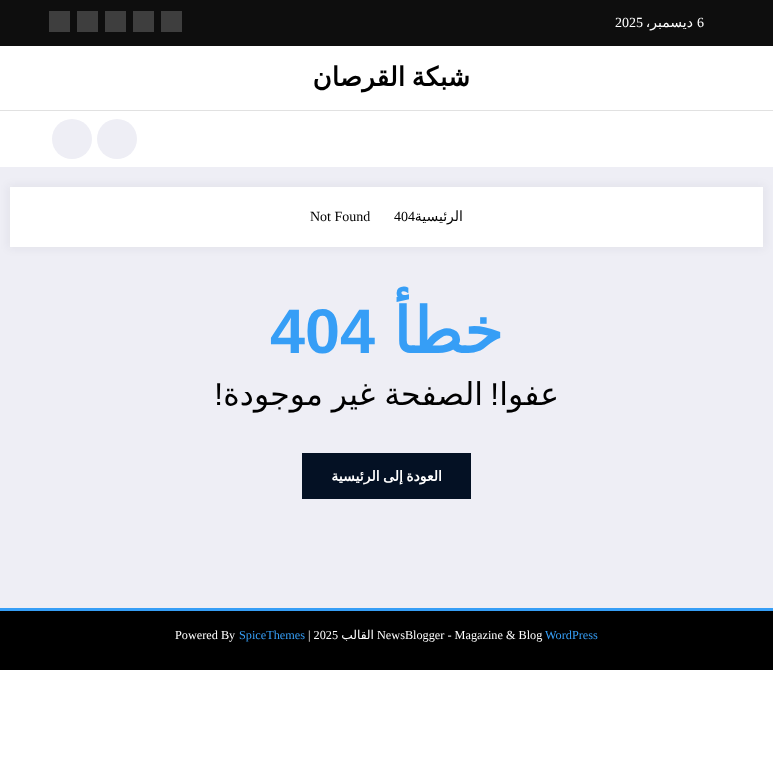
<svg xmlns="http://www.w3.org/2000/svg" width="773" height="776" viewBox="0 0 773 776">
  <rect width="100%" height="100%" fill="#fff"/>
  <path d="M0 167h773v441H0z" fill="#eeeef5"/>
  <path d="M0 0h773v46H0z" fill="#0e0e0e"/>
  <path d="M49 11h21v21H49z" fill="#3e3e3e"/>
  <path d="M77 11h21v21H77z" fill="#3e3e3e"/>
  <path d="M105 11h21v21H105z" fill="#3e3e3e"/>
  <path d="M133 11h21v21H133z" fill="#3e3e3e"/>
  <path d="M161 11h21v21H161z" fill="#3e3e3e"/>
  <path d="M0 110h773v1H0z" fill="#e1e1e1"/>
  <circle cx="72" cy="139" r="20" fill="#eeeef5"/>
  <circle cx="117" cy="139" r="20" fill="#eeeef5"/>
  <path d="M8 185h757v64H8z" fill="#1717230d" filter="blur(4px)"/>
  <path d="M10 187h753v60H10z" fill="#fff"/>
  <path d="M302 453h169v46H302z" fill="#041124"/>
  <path d="M0 608h773v3H0z" fill="#369ef6"/>
  <path d="M0 611h773v59H0z" fill="#000"/>
  <text x="615" y="27" font-family="Liberation Serif" font-size="14" fill="#fff">2025</text>
  <text x="693" y="27" font-family="DejaVu Sans" font-size="14" direction="rtl" fill="#fff">ديسمبر،</text>
  <text x="697" y="27" font-family="Liberation Serif" font-size="14" fill="#fff">6</text>
  <text x="470" y="86" word-spacing="-2" font-family="DejaVu Sans" font-size="26.25" font-weight="bold" direction="rtl" fill="#000">شبكة القرصان</text>
  <g font-family="Liberation Serif" font-size="14" fill="#000">
    <text x="310" y="221">Not Found</text>
    <text x="394" y="221">404</text>
  </g>
  <text x="463" y="221" font-family="DejaVu Sans" font-size="14" direction="rtl" fill="#000">الرئيسية</text>
  <text x="270" y="353" font-family="Liberation Sans" font-size="63" font-weight="bold" fill="#369ef6">404</text>
  <text x="503" y="353" font-family="DejaVu Sans" font-size="63" font-weight="bold" direction="rtl" fill="#369ef6">خطأ</text>
  <text x="223" y="405" font-family="Liberation Sans" font-size="31.5" direction="rtl" fill="#000">!</text>
  <text x="483" y="405" word-spacing="-1" font-family="DejaVu Sans" font-size="31.5" direction="rtl" fill="#000">الصفحة غير موجودة</text>
  <text x="499" y="405" font-family="Liberation Sans" font-size="31.5" direction="rtl" fill="#000">!</text>
  <text x="559" y="405" font-family="DejaVu Sans" font-size="31.5" direction="rtl" fill="#000">عفوا</text>
  <text x="442" y="481" word-spacing="-1" font-family="DejaVu Sans" font-size="14" font-weight="bold" direction="rtl" fill="#fff">العودة إلى الرئيسية</text>
  <text x="175" y="639" font-family="Liberation Serif" font-size="12.25" fill="#fff">Powered By</text>
  <text x="239" y="639" font-family="Liberation Serif" font-size="12.25" fill="#369ef6">SpiceThemes</text>
  <text x="308" y="639" font-family="Liberation Serif" font-size="12.25" fill="#fff">| 2025</text>
  <text x="374" y="639" font-family="DejaVu Sans" font-size="12.25" direction="rtl" fill="#fff">القالب</text>
  <text x="377" y="639" font-family="Liberation Serif" font-size="12.25" fill="#fff">NewsBlogger - Magazine &amp; Blog</text>
  <text x="545" y="639" font-family="Liberation Serif" font-size="12.25" fill="#369ef6">WordPress</text>
</svg>
